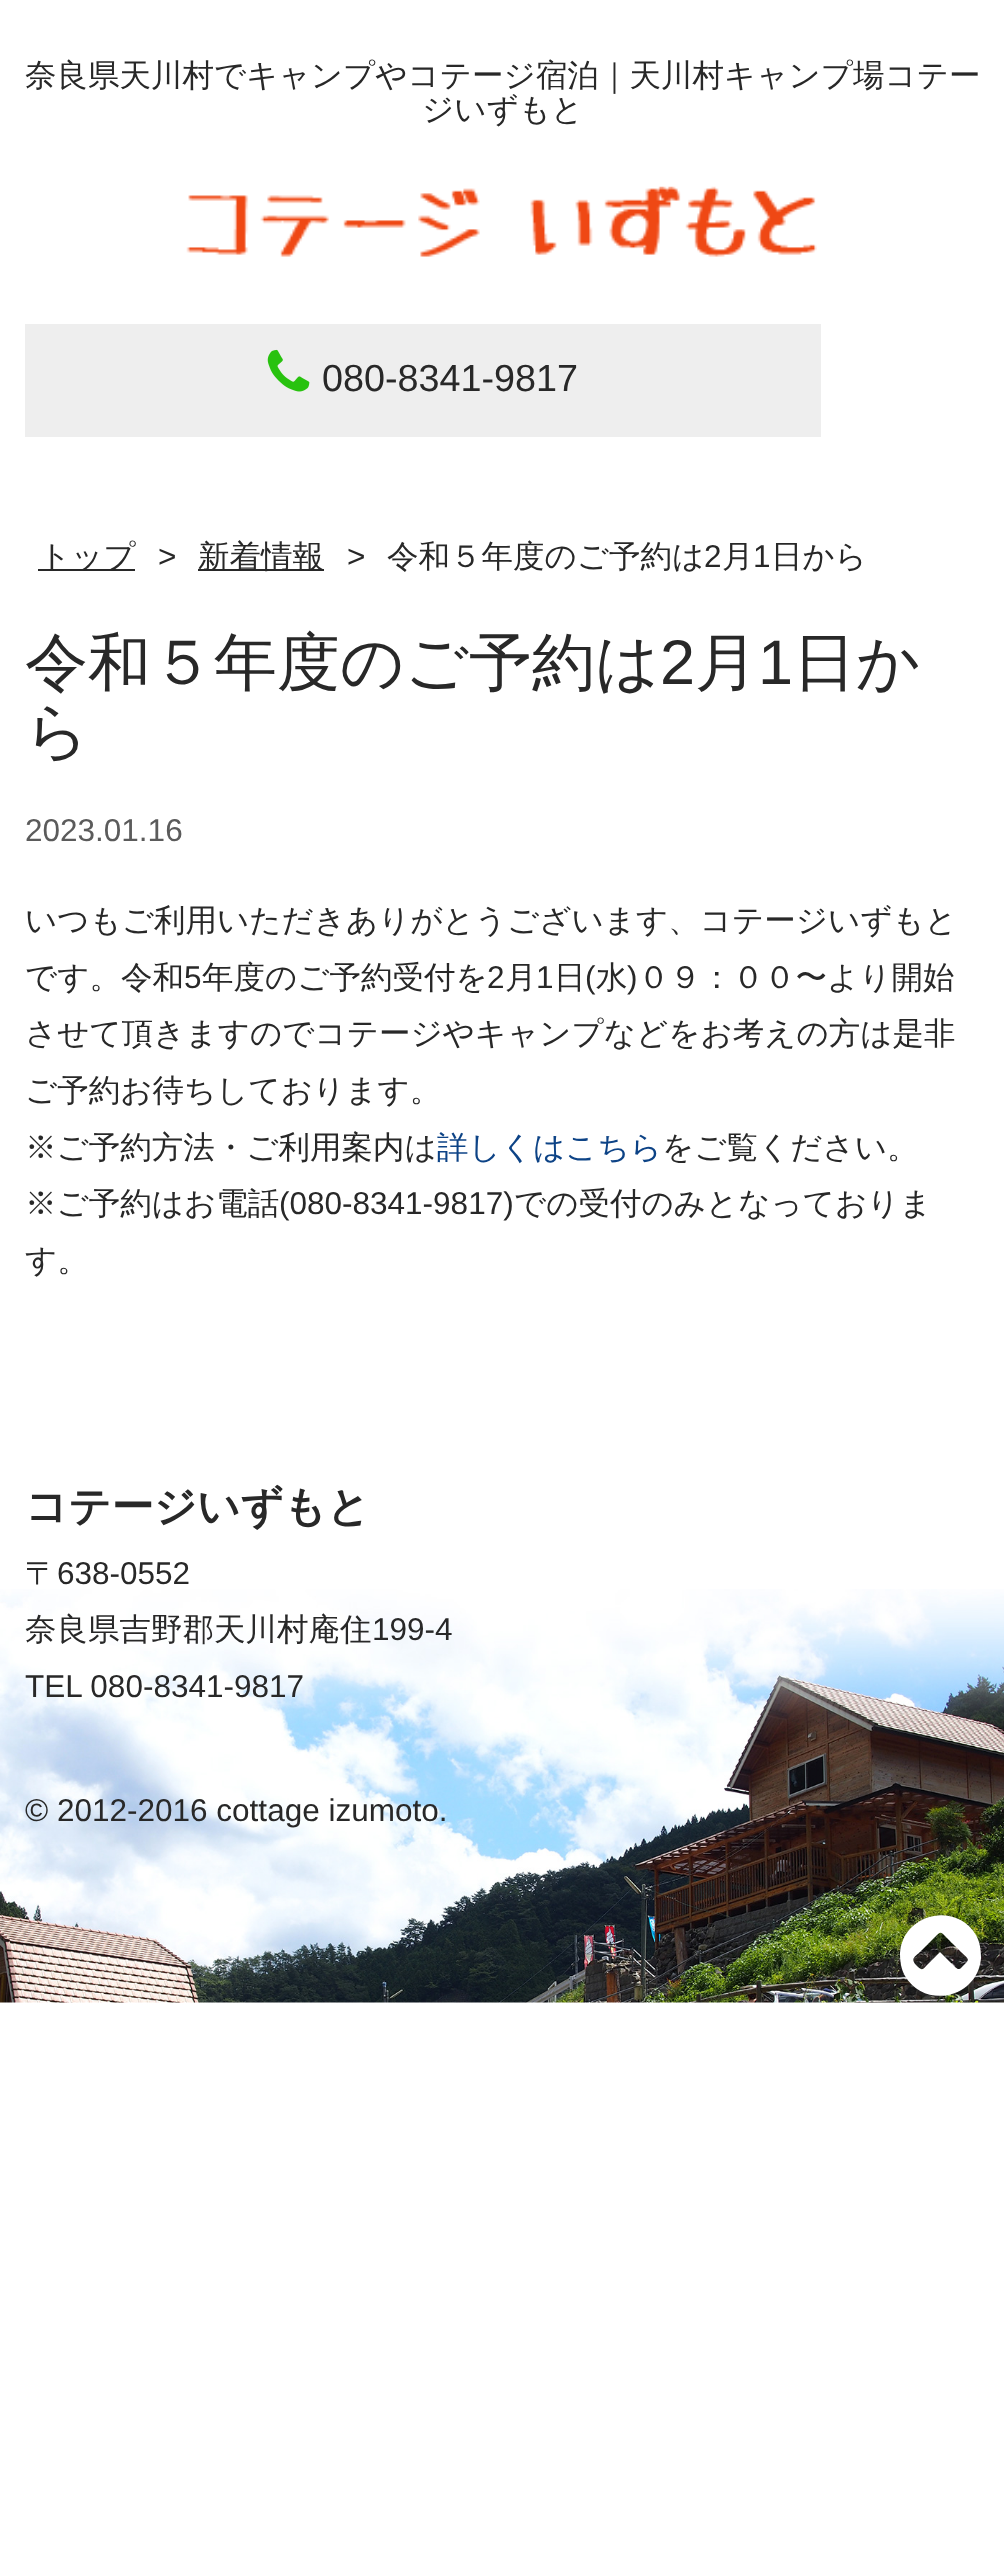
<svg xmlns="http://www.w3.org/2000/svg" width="1004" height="2555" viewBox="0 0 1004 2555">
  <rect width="100%" height="100%" fill="#fff"/>
  <image x="0" y="1589" width="1004" height="414" href="img/1.png"/>
  <image x="186" y="186" width="631" height="71" href="img/2.png"/>
  <path d="M25 324h796v113H25z" fill="#eee"/>
  <image x="267" y="349" width="43" height="43" href="img/3.png"/>
  <path d="M38 569h97v2H38z" fill="#282828"/>
  <path d="M198 569h126v2H198z" fill="#282828"/>
  <path d="M961 1968C971 1958 970 1961 959 1950L947 1938C940 1931 941 1931 934 1938L922 1950C915 1957 910 1958 916 1965C921 1970 922 1971 927 1965L940 1952L951 1963C953 1964 958 1972 961 1968ZM976 1935C980 1942 981 1950 981 1958C978 1998 925 2010 905 1976C901 1969 900 1961 900 1953C903 1913 956 1901 976 1935Z" fill="#fff"/>
  <g font-family="WenQuanYi Zen Hei" font-size="31.5" font-weight="500" fill="#282828">
    <text x="25" y="86">奈良県天川村でキャンプやコテージ宿泊｜天川村キャンプ場コテー</text>
    <text x="422" y="120">ジいずもと</text>
  </g>
  <text x="322" y="391" font-family="Liberation Sans" font-size="37.75" fill="#282828">080-8341-9817</text>
  <text x="39" y="567" font-family="WenQuanYi Zen Hei" font-size="31.5" font-weight="500" fill="#282828">トップ</text>
  <text x="158" y="567" font-family="Liberation Sans" font-size="31.5" fill="#282828">&gt;</text>
  <text x="198" y="567" font-family="WenQuanYi Zen Hei" font-size="31.5" font-weight="500" fill="#282828">新着情報</text>
  <text x="347" y="567" font-family="Liberation Sans" font-size="31.5" fill="#282828">&gt;</text>
  <text x="387" y="567" font-family="WenQuanYi Zen Hei" font-size="31.5" font-weight="500" fill="#282828">令和５年度のご予約は</text>
  <text x="704" y="567" font-family="Liberation Sans" font-size="31.5" fill="#282828">2</text>
  <text x="722" y="567" font-family="WenQuanYi Zen Hei" font-size="31.5" font-weight="500" fill="#282828">月</text>
  <text x="753" y="567" font-family="Liberation Sans" font-size="31.5" fill="#282828">1</text>
  <text x="771" y="567" font-family="WenQuanYi Zen Hei" font-size="31.5" font-weight="500" fill="#282828">日から</text>
  <text x="25" y="684" font-family="WenQuanYi Zen Hei" font-size="63" font-weight="500" fill="#282828">令和５年度のご予約は</text>
  <text x="660" y="684" font-family="Liberation Sans" font-size="63" fill="#282828">2</text>
  <text x="695" y="684" font-family="WenQuanYi Zen Hei" font-size="63" font-weight="500" fill="#282828">月</text>
  <text x="758" y="684" font-family="Liberation Sans" font-size="63" fill="#282828">1</text>
  <g font-family="WenQuanYi Zen Hei" font-size="63" font-weight="500" fill="#282828">
    <text x="793" y="684">日か</text>
    <text x="25" y="753">ら</text>
  </g>
  <text x="25" y="841" font-family="Liberation Sans" font-size="31.5" fill="#5b5b5b">2023.01.16</text>
  <g font-family="WenQuanYi Zen Hei" font-size="31.5" font-weight="500" fill="#282828">
    <text x="25" y="931">いつもご利用いただきありがとうございます、コテージいずもと</text>
    <text x="25" y="988">です。令和</text>
  </g>
  <text x="184" y="988" font-family="Liberation Sans" font-size="31.5" fill="#282828">5</text>
  <text x="202" y="988" font-family="WenQuanYi Zen Hei" font-size="31.5" font-weight="500" fill="#282828">年度のご予約受付を</text>
  <text x="487" y="988" font-family="Liberation Sans" font-size="31.5" fill="#282828">2</text>
  <text x="505" y="988" font-family="WenQuanYi Zen Hei" font-size="31.5" font-weight="500" fill="#282828">月</text>
  <text x="536" y="988" font-family="Liberation Sans" font-size="31.5" fill="#282828">1</text>
  <text x="554" y="988" font-family="WenQuanYi Zen Hei" font-size="31.5" font-weight="500" fill="#282828">日</text>
  <text x="585" y="988" font-family="Liberation Sans" font-size="31.5" fill="#282828">(</text>
  <text x="596" y="988" font-family="WenQuanYi Zen Hei" font-size="31.5" font-weight="500" fill="#282828">水</text>
  <text x="627" y="988" font-family="Liberation Sans" font-size="31.5" fill="#282828">)</text>
  <g font-family="WenQuanYi Zen Hei" font-size="31.5" font-weight="500" fill="#282828">
    <text x="638" y="988">０９：００〜より開始</text>
    <text x="25" y="1044">させて頂きますのでコテージやキャンプなどをお考えの方は是非</text>
    <text x="25" y="1101">ご予約お待ちしております。</text>
    <text x="25" y="1158">※ご予約方法・ご利用案内は</text>
  </g>
  <text x="437" y="1158" font-family="WenQuanYi Zen Hei" font-size="31.5" font-weight="500" fill="#0d4386">詳しくはこちら</text>
  <g font-family="WenQuanYi Zen Hei" font-size="31.5" font-weight="500" fill="#282828">
    <text x="662" y="1158">をご覧ください。</text>
    <text x="25" y="1214">※ご予約はお電話</text>
  </g>
  <text x="279" y="1214" font-family="Liberation Sans" font-size="31.5" fill="#282828">(080-8341-9817)</text>
  <g font-family="WenQuanYi Zen Hei" font-size="31.5" font-weight="500" fill="#282828">
    <text x="514" y="1214">での受付のみとなっておりま</text>
    <text x="25" y="1271">す。</text>
  </g>
  <text x="25" y="1521" font-family="WenQuanYi Zen Hei" font-size="42.25" font-weight="bold" fill="#282828">コテージいずもと</text>
  <text x="25" y="1584" font-family="WenQuanYi Zen Hei" font-size="31.5" font-weight="500" fill="#282828">〒</text>
  <text x="57" y="1584" font-family="Liberation Sans" font-size="31.5" fill="#282828">638-0552</text>
  <text x="25" y="1640" font-family="WenQuanYi Zen Hei" font-size="31.5" font-weight="500" fill="#282828">奈良県吉野郡天川村庵住</text>
  <g font-family="Liberation Sans" font-size="31.5" fill="#282828">
    <text x="372" y="1640">199-4</text>
    <text x="25" y="1697">TEL 080-8341-9817</text>
    <text x="25" y="1821">© 2012-2016 cottage izumoto.</text>
  </g>
</svg>
